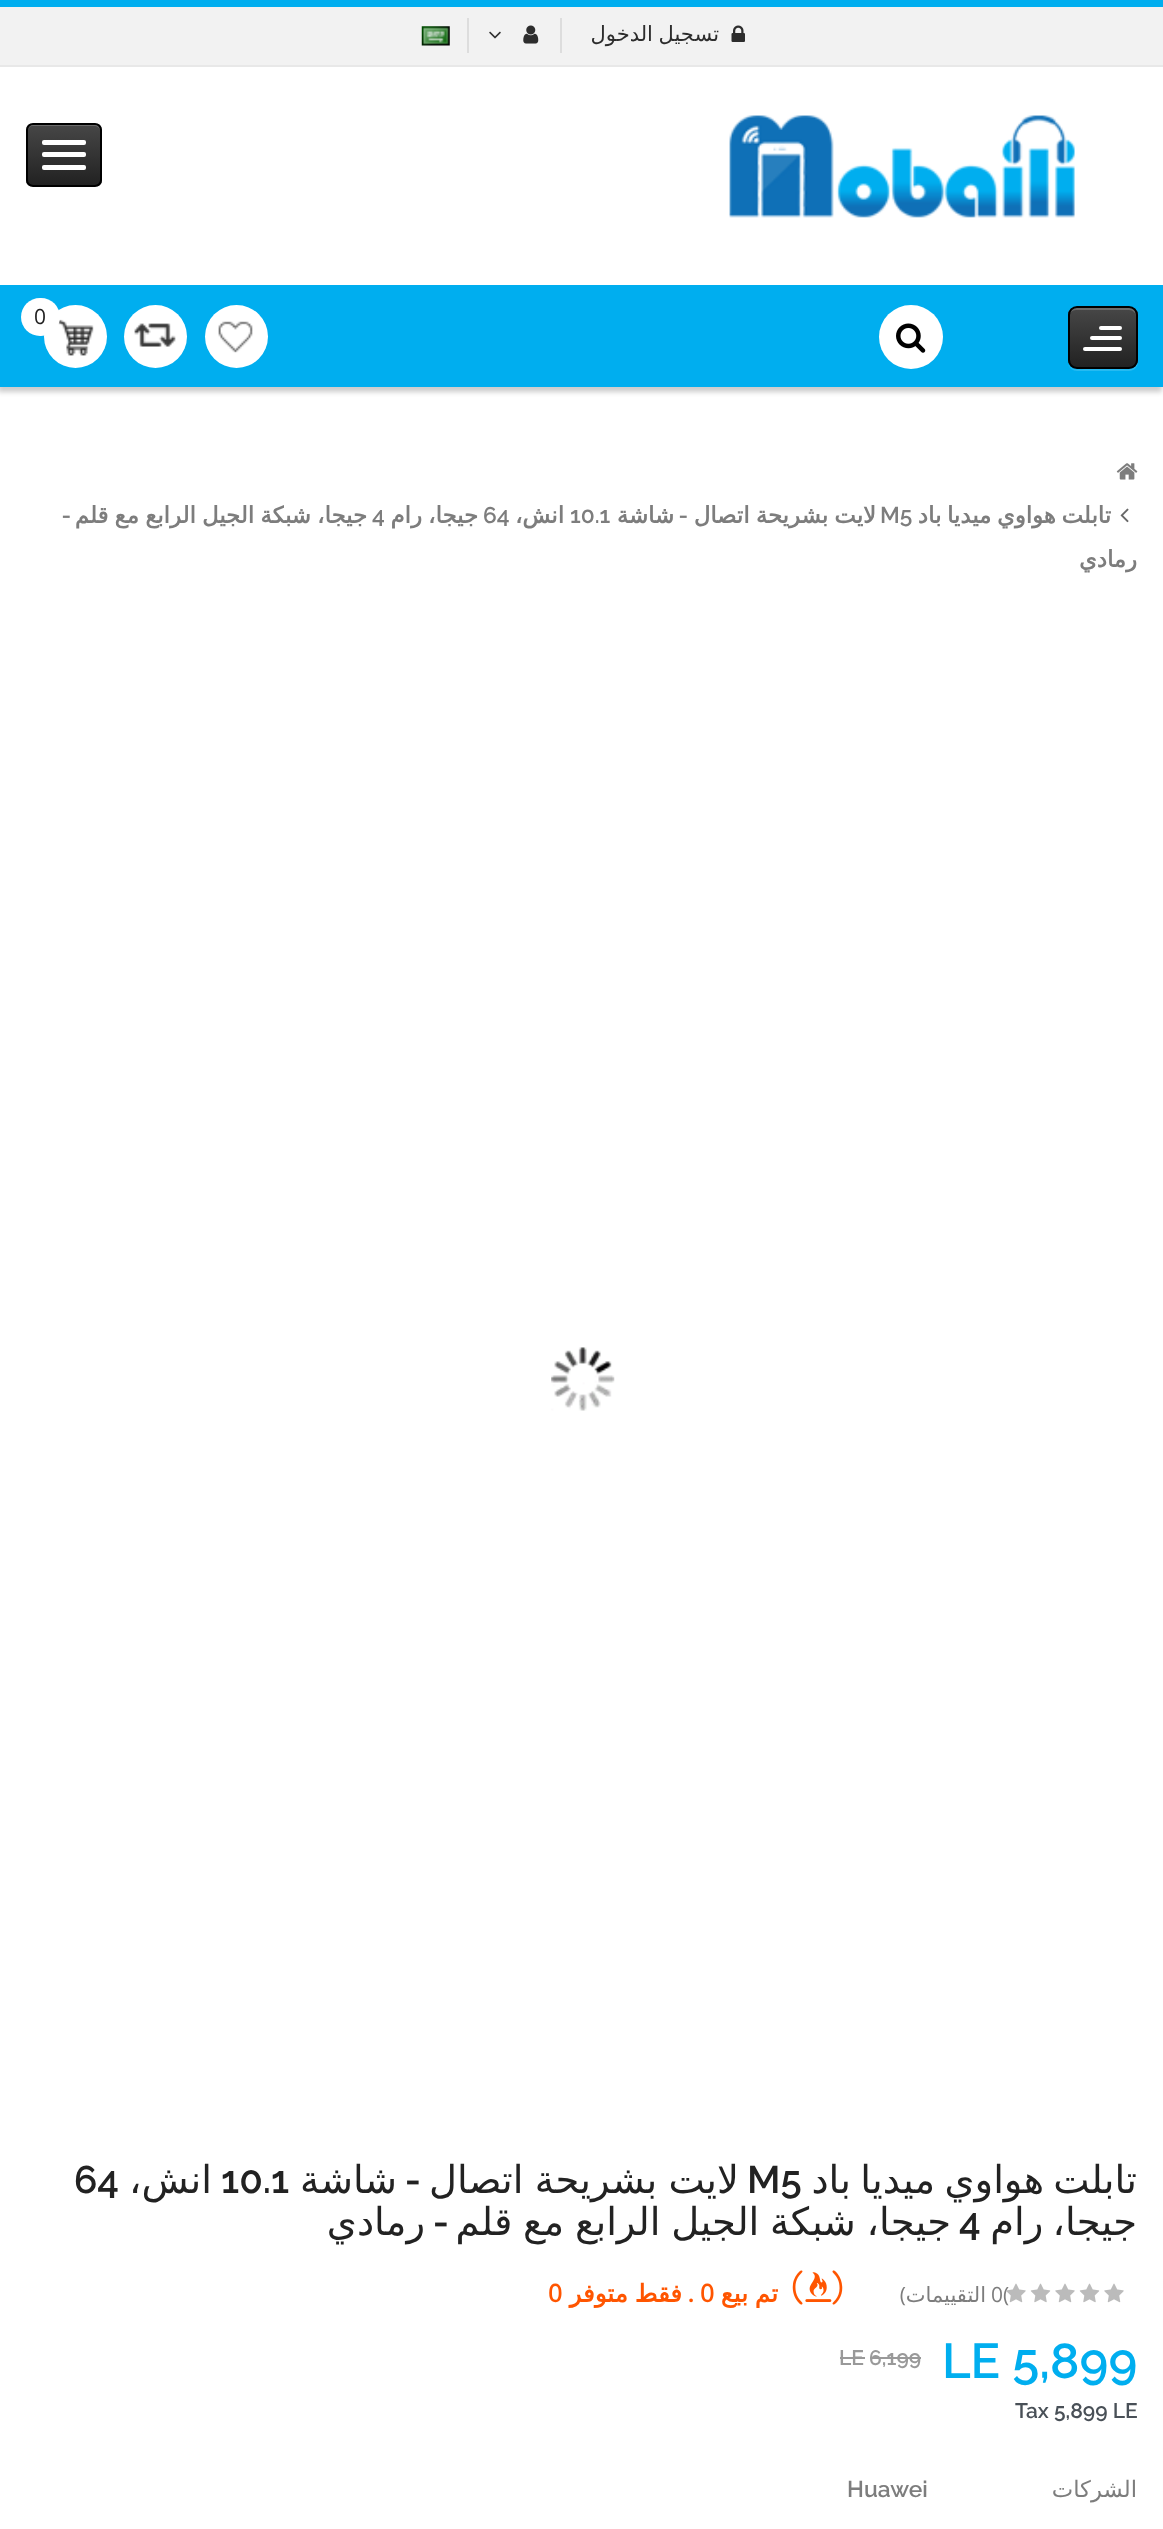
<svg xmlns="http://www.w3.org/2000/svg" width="1163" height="2529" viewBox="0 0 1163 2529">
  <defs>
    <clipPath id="clip1"><rect x="26" y="123" width="76" height="64" rx="7"/></clipPath>
    <linearGradient id="g1" gradientUnits="userSpaceOnUse" x1="64" y1="124" x2="64" y2="186"><stop offset="0" stop-color="#474747"/><stop offset="1" stop-color="#212121"/></linearGradient>
    <clipPath id="clip2"><rect x="1068" y="306" width="70" height="63" rx="9"/></clipPath>
    <linearGradient id="g2" gradientUnits="userSpaceOnUse" x1="1103" y1="308" x2="1103" y2="368"><stop offset="0" stop-color="#474747"/><stop offset="1" stop-color="#212121"/></linearGradient>
  </defs>
  <rect width="100%" height="100%" fill="#fff"/>
  <path d="M0 0h1163v7H0z" fill="#00aeef"/>
  <path d="M0 7h1163v58H0z" fill="#f2f2f2"/>
  <path d="M0 65h1163v2H0z" fill="#e8e8e8"/>
  <image x="731" y="25" width="14" height="17" href="img/1.png"/>
  <path d="M560 18h2v35H560z" fill="#ddd"/>
  <image x="523" y="25" width="16" height="19" href="img/2.png"/>
  <image x="489" y="31" width="12" height="8" href="img/3.png"/>
  <path d="M467 18h2v35H467z" fill="#ddd"/>
  <image x="421" y="26" width="29" height="20" href="img/4.png"/>
  <image x="729" y="115" width="346" height="103" href="img/5.png"/>
  <g clip-path="url(#clip1)">
    <path d="M26 124h76v62H26z" fill="url(#g1)"/>
  </g>
  <path d="M33 126H94C97 126 100 128 100 131C100 121 93 124 85 124H43C35 124 28 121 28 131C28 128 30 126 33 126Z" fill="#ffffff33"/>
  <rect x="27" y="124" width="74" height="62" rx="6" fill="none" stroke="#000" stroke-width="2"/>
  <rect x="42" y="140" width="44" height="5" rx="2" fill="#fff"/>
  <rect x="42" y="152" width="44" height="5" rx="2" fill="#fff"/>
  <rect x="42" y="165" width="44" height="5" rx="2" fill="#fff"/>
  <path d="M-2 291h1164v101H-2z" fill="#00000033" filter="blur(2.5px)"/>
  <path d="M0 285h1163v102H0z" fill="#00aeef"/>
  <path d="M1068 364C1069 368 1073 371 1077 371H1129C1134 371 1138 367 1138 362V317L1137 314V362C1136 371 1126 369 1120 369H1085C1079 369 1071 371 1068 364Z" fill="#26baf1"/>
  <g clip-path="url(#clip2)">
    <path d="M1068 308h70v60H1068z" fill="url(#g2)"/>
  </g>
  <path d="M1076 310H1129C1133 310 1136 313 1136 317C1136 306 1129 308 1120 308H1085C1076 308 1069 306 1069 317C1069 313 1072 310 1076 310Z" fill="#ffffff33"/>
  <rect x="1069" y="307" width="68" height="61" rx="8" fill="none" stroke="#000" stroke-width="2"/>
  <rect x="1099" y="326" width="23" height="4" rx="2" fill="#fff"/>
  <rect x="1090" y="336" width="32" height="4" rx="2" fill="#fff"/>
  <rect x="1083" y="347" width="39" height="4" rx="2" fill="#fff"/>
  <circle cx="911" cy="337" r="32" fill="#fff"/>
  <image x="896" y="323" width="30" height="30" href="img/6.png"/>
  <circle cx="236.5" cy="336.5" r="31.5" fill="#fff"/>
  <image x="218" y="321" width="35" height="32" href="img/7.png"/>
  <circle cx="155.5" cy="336.5" r="31.5" fill="#fff"/>
  <image x="134" y="323" width="42" height="24" href="img/8.png"/>
  <circle cx="75.5" cy="336.5" r="31.5" fill="#fff"/>
  <image x="58" y="319" width="36" height="37" href="img/9.png"/>
  <rect x="21" y="298" width="39" height="38" rx="19" fill="#fff"/>
  <image x="1116" y="463" width="22" height="17" href="img/10.png"/>
  <image x="1120" y="508" width="9" height="15" href="img/11.png"/>
  <image x="551" y="1347" width="64" height="64" href="img/12.png"/>
  <image x="1104" y="2283" width="20" height="20" href="img/13.png"/>
  <image x="1079" y="2283" width="21" height="20" href="img/14.png"/>
  <image x="1055" y="2283" width="20" height="20" href="img/13.png"/>
  <image x="1030" y="2283" width="21" height="20" href="img/14.png"/>
  <image x="792" y="2270" width="51" height="35" href="img/16.png"/>
  <path d="M840 2357h25v2H840z" fill="#999"/>
  <path d="M870 2357h51v2H870z" fill="#999"/>
  <text x="719" y="41" word-spacing="-1" font-family="DejaVu Sans" font-size="21" direction="rtl" fill="#2d2d2d">تسجيل الدخول</text>
  <text x="34" y="324" font-family="Open Sans" font-size="21" fill="#222">0</text>
  <text x="1111" y="523" word-spacing="-1.5" font-family="DejaVu Sans" font-size="22.75" font-weight="bold" direction="rtl" fill="#7d7d7d">تابلت هواوي ميديا باد</text>
  <text x="880" y="523" font-family="Raleway" font-size="22.75" font-weight="600" fill="#7d7d7d">M5</text>
  <text x="876" y="523" word-spacing="-1" font-family="DejaVu Sans" font-size="22.75" font-weight="bold" direction="rtl" fill="#7d7d7d">لايت بشريحة اتصال</text>
  <text x="688" y="523" font-family="Raleway" font-size="22.75" font-weight="600" direction="rtl" fill="#7d7d7d">-</text>
  <text x="674" y="523" font-family="DejaVu Sans" font-size="22.75" font-weight="bold" direction="rtl" fill="#7d7d7d">شاشة</text>
  <text x="570" y="523" font-family="Raleway" font-size="22.75" font-weight="600" fill="#7d7d7d">10.1</text>
  <text x="564" y="523" font-family="DejaVu Sans" font-size="22.75" font-weight="bold" direction="rtl" fill="#7d7d7d">انش،</text>
  <text x="483" y="523" font-family="Raleway" font-size="22.75" font-weight="600" fill="#7d7d7d">64</text>
  <text x="478" y="523" word-spacing="-1" font-family="DejaVu Sans" font-size="22.75" font-weight="bold" direction="rtl" fill="#7d7d7d">جيجا، رام</text>
  <text x="372" y="523" font-family="Raleway" font-size="22.75" font-weight="600" fill="#7d7d7d">4</text>
  <text x="367" y="523" word-spacing="-1" font-family="DejaVu Sans" font-size="22.75" font-weight="bold" direction="rtl" fill="#7d7d7d">جيجا، شبكة الجيل الرابع مع قلم</text>
  <text x="71" y="523" font-family="Raleway" font-size="22.75" font-weight="600" direction="rtl" fill="#7d7d7d">-</text>
  <text x="1137" y="567" font-family="DejaVu Sans" font-size="22.75" font-weight="bold" direction="rtl" fill="#7d7d7d">رمادي</text>
  <text x="1137" y="2193" word-spacing="-3" font-family="DejaVu Sans" font-size="38.5" direction="rtl" fill="#222">تابلت هواوي ميديا باد</text>
  <text x="747" y="2193" font-family="Raleway" font-size="38.5" font-weight="600" fill="#222">M5</text>
  <text x="739" y="2193" word-spacing="-1" font-family="DejaVu Sans" font-size="38.5" direction="rtl" fill="#222">لايت بشريحة اتصال</text>
  <text x="421" y="2193" font-family="Raleway" font-size="38.5" font-weight="600" direction="rtl" fill="#222">-</text>
  <text x="397" y="2193" font-family="DejaVu Sans" font-size="38.5" direction="rtl" fill="#222">شاشة</text>
  <text x="221" y="2193" font-family="Raleway" font-size="38.5" font-weight="600" fill="#222">10.1</text>
  <text x="212" y="2193" font-family="DejaVu Sans" font-size="38.5" direction="rtl" fill="#222">انش،</text>
  <text x="74" y="2193" font-family="Raleway" font-size="38.5" font-weight="600" fill="#222">64</text>
  <text x="1137" y="2235" word-spacing="-3" font-family="DejaVu Sans" font-size="38.5" direction="rtl" fill="#222">جيجا، رام</text>
  <text x="959" y="2235" font-family="Raleway" font-size="38.5" font-weight="600" fill="#222">4</text>
  <text x="951" y="2235" word-spacing="-1.5" font-family="DejaVu Sans" font-size="38.5" direction="rtl" fill="#222">جيجا، شبكة الجيل الرابع مع قلم</text>
  <text x="449" y="2235" font-family="Raleway" font-size="38.5" font-weight="600" direction="rtl" fill="#222">-</text>
  <text x="425" y="2235" font-family="DejaVu Sans" font-size="38.5" direction="rtl" fill="#222">رمادي</text>
  <text x="991" y="2302" font-family="Open Sans" font-size="21" fill="#7d7d7d">0(</text>
  <image x="1006" y="2283" width="20" height="20" href="img/15.png"/>
  <text x="986" y="2302" font-family="DejaVu Sans" font-size="21" direction="rtl" fill="#7d7d7d">التقييمات</text>
  <text x="906" y="2302" font-family="Open Sans" font-size="21" direction="rtl" fill="#7d7d7d">)</text>
  <text x="778" y="2302" word-spacing="-1" font-family="DejaVu Sans" font-size="24.5" font-weight="bold" direction="rtl" fill="#f50">تم بيع</text>
  <text x="700" y="2302" font-family="Open Sans" font-size="24.5" font-weight="bold" fill="#f50">0</text>
  <text x="694" y="2302" font-family="Open Sans" font-size="24.5" font-weight="bold" direction="rtl" fill="#f50">.</text>
  <text x="682" y="2302" word-spacing="-1" font-family="DejaVu Sans" font-size="24.5" font-weight="bold" direction="rtl" fill="#f50">فقط متوفر</text>
  <text x="548" y="2302" font-family="Open Sans" font-size="24.5" font-weight="bold" fill="#f50">0</text>
  <text x="942" y="2378" font-family="Raleway" font-size="49" font-weight="600" fill="#00aeef">LE 5,899</text>
  <text x="839" y="2365" font-family="Raleway" font-size="21" font-weight="600" fill="#999">LE 6,199</text>
  <text x="1015" y="2418" font-family="Raleway" font-size="21" font-weight="600" fill="#495057">Tax 5,899 LE</text>
  <text x="1137" y="2497" font-family="DejaVu Sans" font-size="22.75" direction="rtl" fill="#7d7d7d">الشركات</text>
  <text x="847" y="2497" font-family="Raleway" font-size="22.75" font-weight="600" fill="#7d7d7d">Huawei</text>
</svg>
